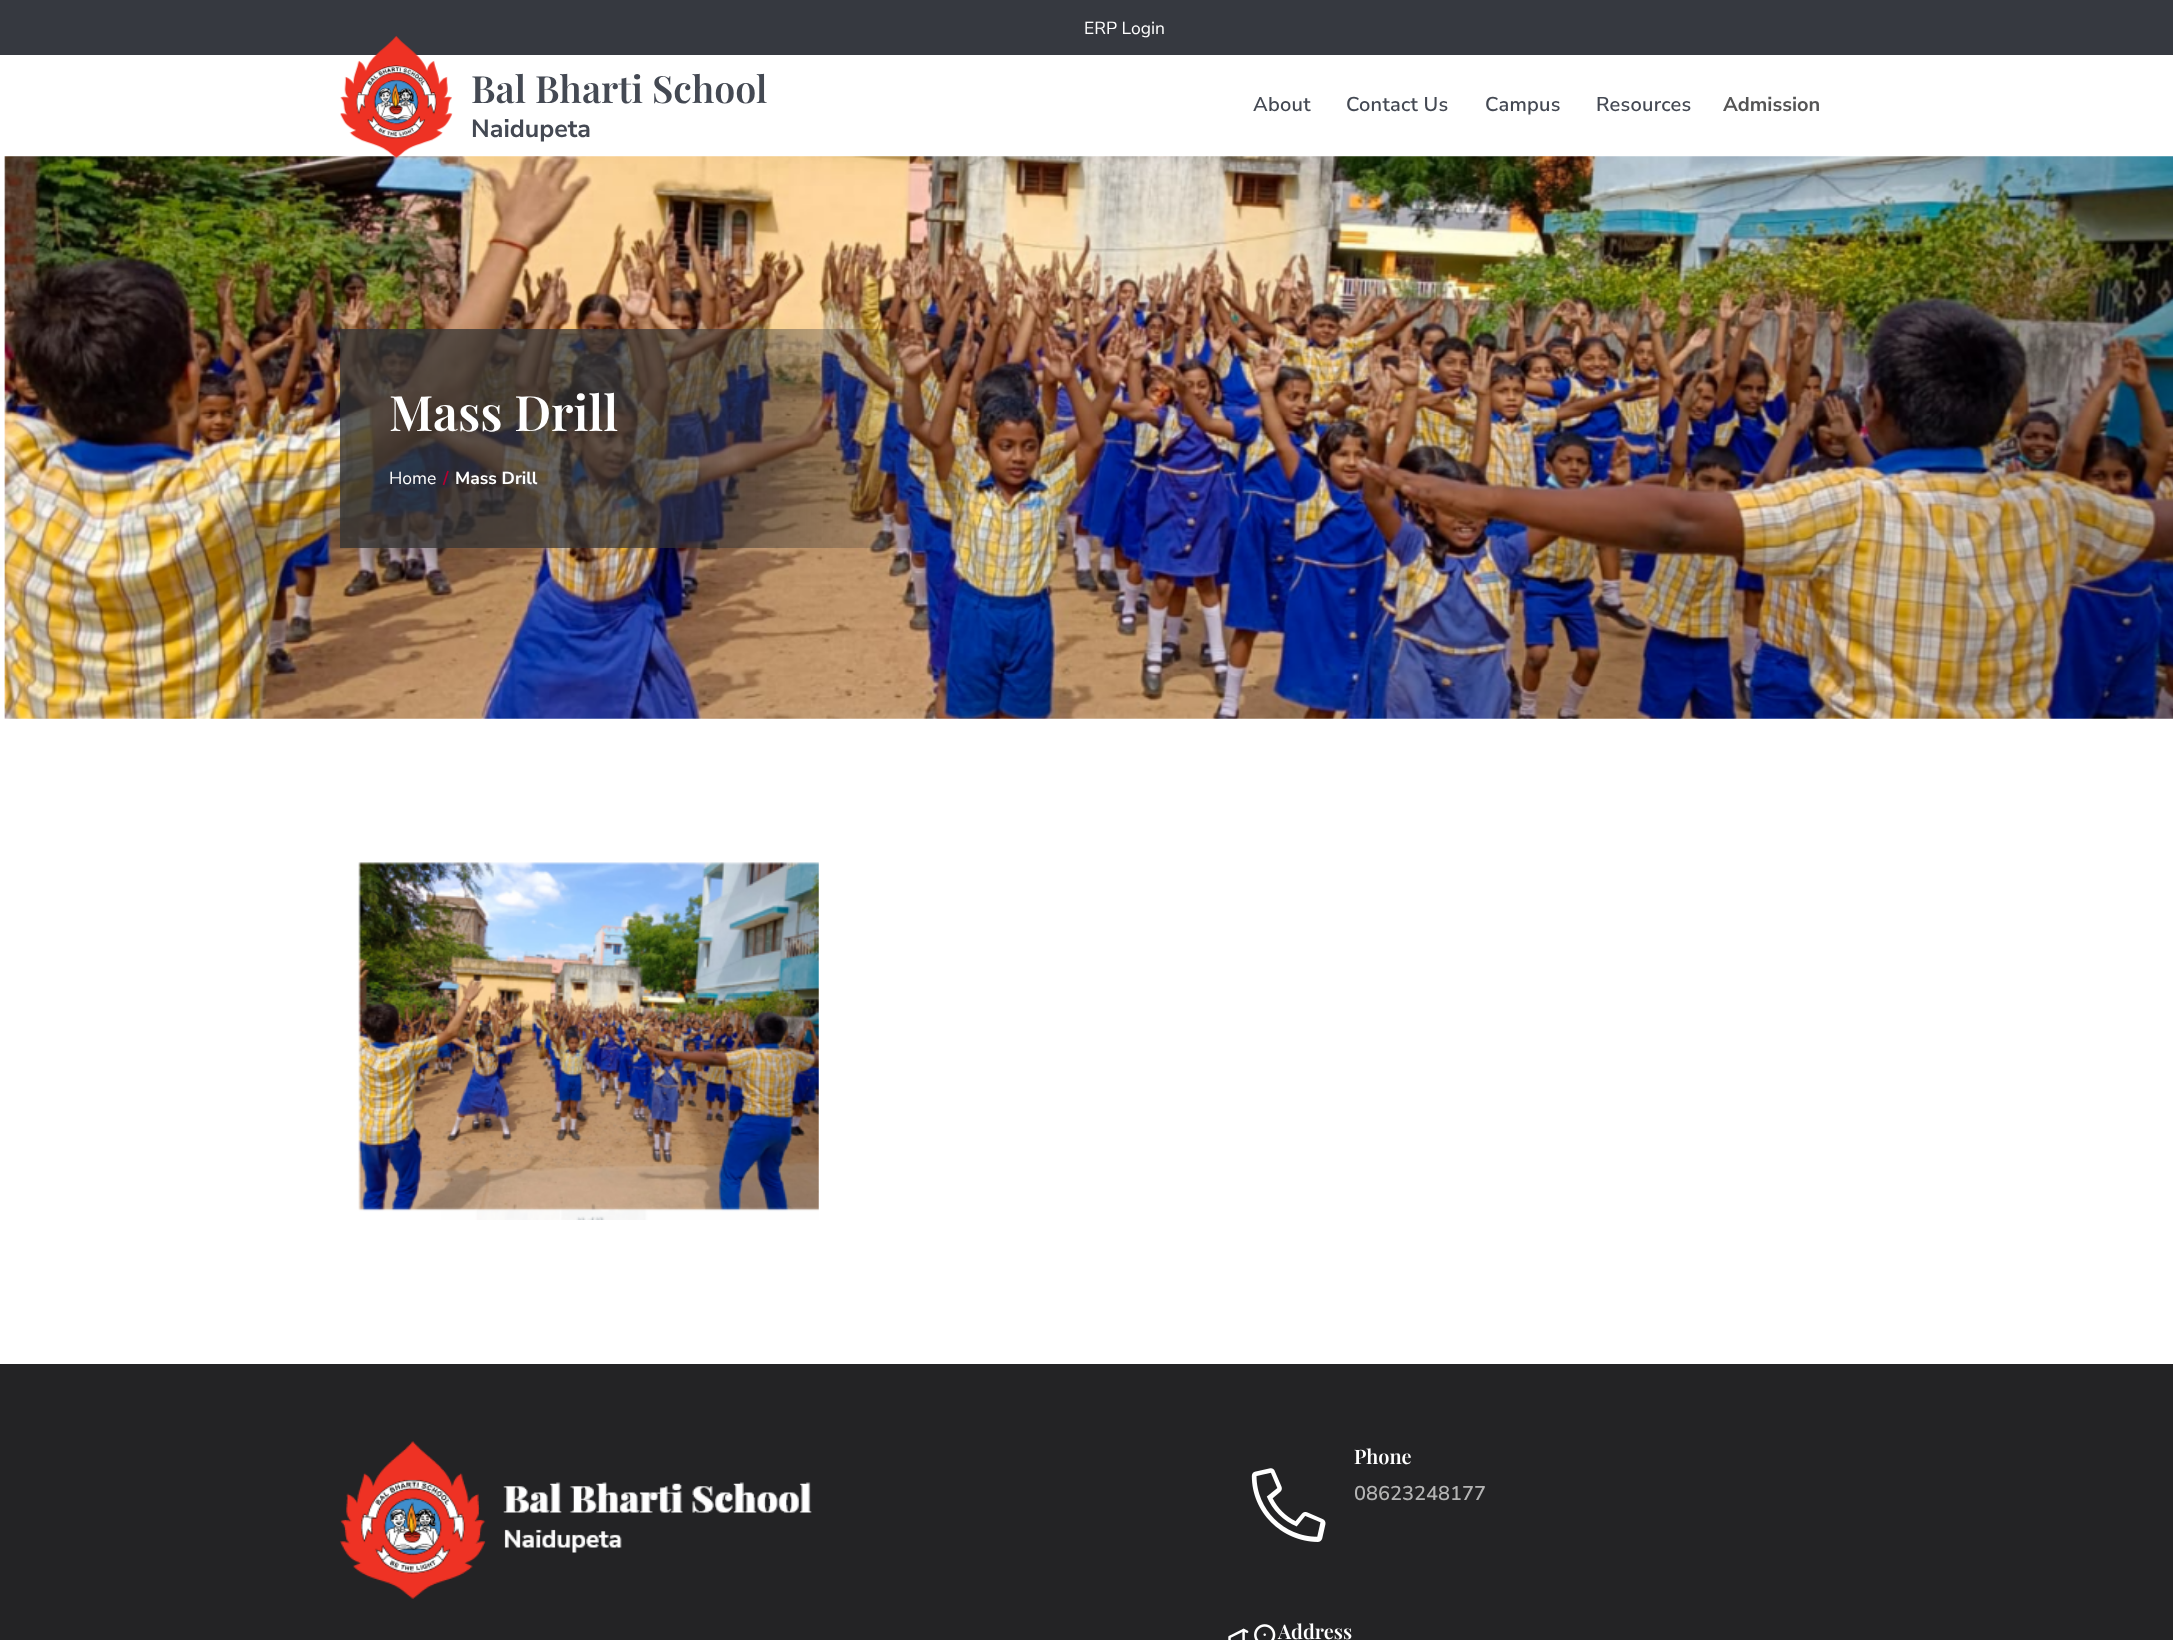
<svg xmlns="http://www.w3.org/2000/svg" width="2173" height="1640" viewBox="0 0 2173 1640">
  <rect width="100%" height="100%" fill="#fff"/>
  <path d="M0 0h2173v55H0z" fill="#363940"/>
  <image x="0" y="156" width="2173" height="563" href="img/2.png"/>
  <image x="340" y="35" width="113" height="124" href="img/1.png"/>
  <image x="358" y="862" width="461" height="358" href="img/3.png"/>
  <path d="M0 1364h2173v276H0z" fill="#232325"/>
  <image x="340" y="1441" width="472" height="158" href="img/4.png"/>
  <image x="1251" y="1468" width="75" height="74" href="img/5.png"/>
  <image x="1228" y="1624" width="48" height="16" href="img/6.png"/>
  <text x="1084" y="34" font-family="Nunito Sans" font-size="17.5" fill="#fff">ERP Login</text>
  <text x="471" y="103" font-family="Playfair Display" font-size="37.5" font-weight="600" fill="#444953">Bal Bharti School</text>
  <text x="471" y="137" font-family="Nunito Sans" font-size="25" font-weight="bold" fill="#444953">Naidupeta</text>
  <g font-family="Nunito Sans" font-size="20" font-weight="600" letter-spacing="0.25" fill="#444953">
    <text x="1253" y="111">About</text>
    <text x="1346" y="111">Contact Us</text>
    <text x="1485" y="111">Campus</text>
    <text x="1596" y="111">Resources</text>
  </g>
  <text x="1723" y="111" font-family="Nunito Sans" font-size="20" font-weight="bold" fill="#555">Admission</text>
  <text x="389" y="431" font-family="Playfair Display" font-size="48.75" font-weight="600" fill="#fff">Mass Drill</text>
  <text x="389" y="484" font-family="Nunito Sans" font-size="17.5" fill="#fff">Home</text>
  <text x="443" y="484" font-family="Nunito Sans" font-size="17.5" font-weight="bold" fill="#b2022f">/</text>
  <text x="455" y="484" font-family="Nunito Sans" font-size="17.5" font-weight="bold" fill="#fff">Mass Drill</text>
  <text x="1354" y="1464" font-family="Playfair Display" font-size="20" font-weight="600" fill="#fff">Phone</text>
  <text x="1354" y="1500" font-family="Nunito Sans" font-size="20" font-weight="600" fill="#b3b3b3">08623248177</text>
  <text x="1278" y="1639" font-family="Playfair Display" font-size="20" font-weight="600" fill="#fff">Address</text>
</svg>
